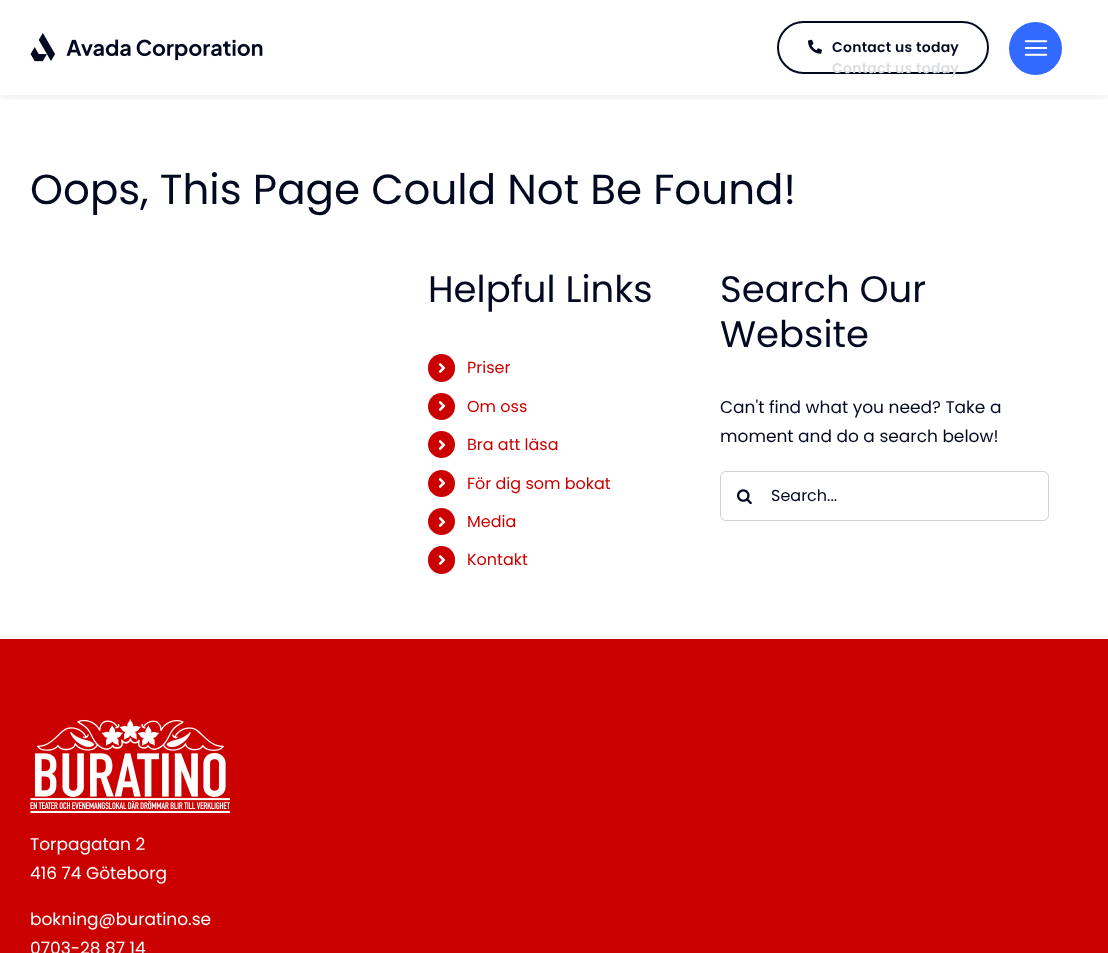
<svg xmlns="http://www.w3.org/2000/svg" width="1108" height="953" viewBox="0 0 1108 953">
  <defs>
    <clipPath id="clip1"><path d="M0 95h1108v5H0z"/></clipPath>
  </defs>
  <rect width="100%" height="100%" fill="#fff"/>
  <g clip-path="url(#clip1)">
    <path d="M0 0h1108v95H0z" fill="#0408201a" filter="blur(6.5px)"/>
  </g>
  <image x="30" y="33" width="233" height="29" href="img/1.png"/>
  <rect x="778" y="22" width="210" height="51" rx="25.5" fill="none" stroke="#040922" stroke-width="2"/>
  <image x="808" y="39" width="14" height="15" href="img/2.png"/>
  <circle cx="1035.5" cy="48.5" r="26.5" fill="#3269ff"/>
  <image x="1024" y="40" width="24" height="16" href="img/3.png"/>
  <rect x="428" y="354" width="27" height="28" rx="13.5" fill="#cb0000"/>
  <image x="438" y="363" width="8" height="10" href="img/4.png"/>
  <circle cx="441.5" cy="406.5" r="13.5" fill="#cb0000"/>
  <image x="438" y="401" width="8" height="10" href="img/4.png"/>
  <circle cx="441.5" cy="444.5" r="13.5" fill="#cb0000"/>
  <image x="438" y="440" width="8" height="10" href="img/4.png"/>
  <circle cx="441.5" cy="483.5" r="13.5" fill="#cb0000"/>
  <image x="438" y="478" width="8" height="10" href="img/4.png"/>
  <circle cx="441.5" cy="521.5" r="13.5" fill="#cb0000"/>
  <image x="438" y="517" width="8" height="10" href="img/4.png"/>
  <rect x="428" y="546" width="27" height="28" rx="13.5" fill="#cb0000"/>
  <image x="438" y="555" width="8" height="10" href="img/4.png"/>
  <rect x="720.5" y="471.5" width="328" height="49" rx="5.5" fill="none" stroke="#d1d1d1"/>
  <image x="737" y="489" width="15" height="16" href="img/5.png"/>
  <path d="M0 639h1108v314H0z" fill="#cb0000"/>
  <image x="30" y="719" width="200" height="94" href="img/6.png"/>
  <text x="832" y="52" font-family="Poppins" font-size="14" font-weight="600" letter-spacing="0.25" fill="#040922">Contact us today</text>
  <text x="832" y="73" font-family="Poppins" font-size="14" font-weight="600" letter-spacing="0.25" fill="#dcdde0">Contact us today</text>
  <text x="30" y="204" font-family="Poppins" font-size="42" fill="#040922">Oops, This Page Could Not Be Found!</text>
  <text x="428" y="302" font-family="Poppins" font-size="37" fill="#040922">Helpful Links</text>
  <g font-family="Poppins" font-size="16" fill="#cb0000">
    <text x="467" y="373">Priser</text>
    <text x="467" y="412">Om oss</text>
    <text x="467" y="450">Bra att läsa</text>
    <text x="467" y="489">För dig som bokat</text>
    <text x="467" y="527">Media</text>
    <text x="467" y="565">Kontakt</text>
  </g>
  <g font-family="Poppins" font-size="37" fill="#040922">
    <text x="720" y="302">Search Our</text>
    <text x="720" y="347">Website</text>
  </g>
  <g font-family="Poppins" font-size="17" fill="#040922">
    <text x="720" y="413">Can't find what you need? Take a</text>
    <text x="720" y="442">moment and do a search below!</text>
  </g>
  <text x="771" y="501" font-family="Poppins" font-size="16" fill="#040922">Search...</text>
  <g font-family="Poppins" font-size="17" fill="#fff">
    <text x="30" y="850">Torpagatan 2</text>
    <text x="30" y="879">416 74 Göteborg</text>
    <text x="30" y="925">bokning@buratino.se</text>
    <text x="30" y="954">0703-28 87 14</text>
  </g>
</svg>
